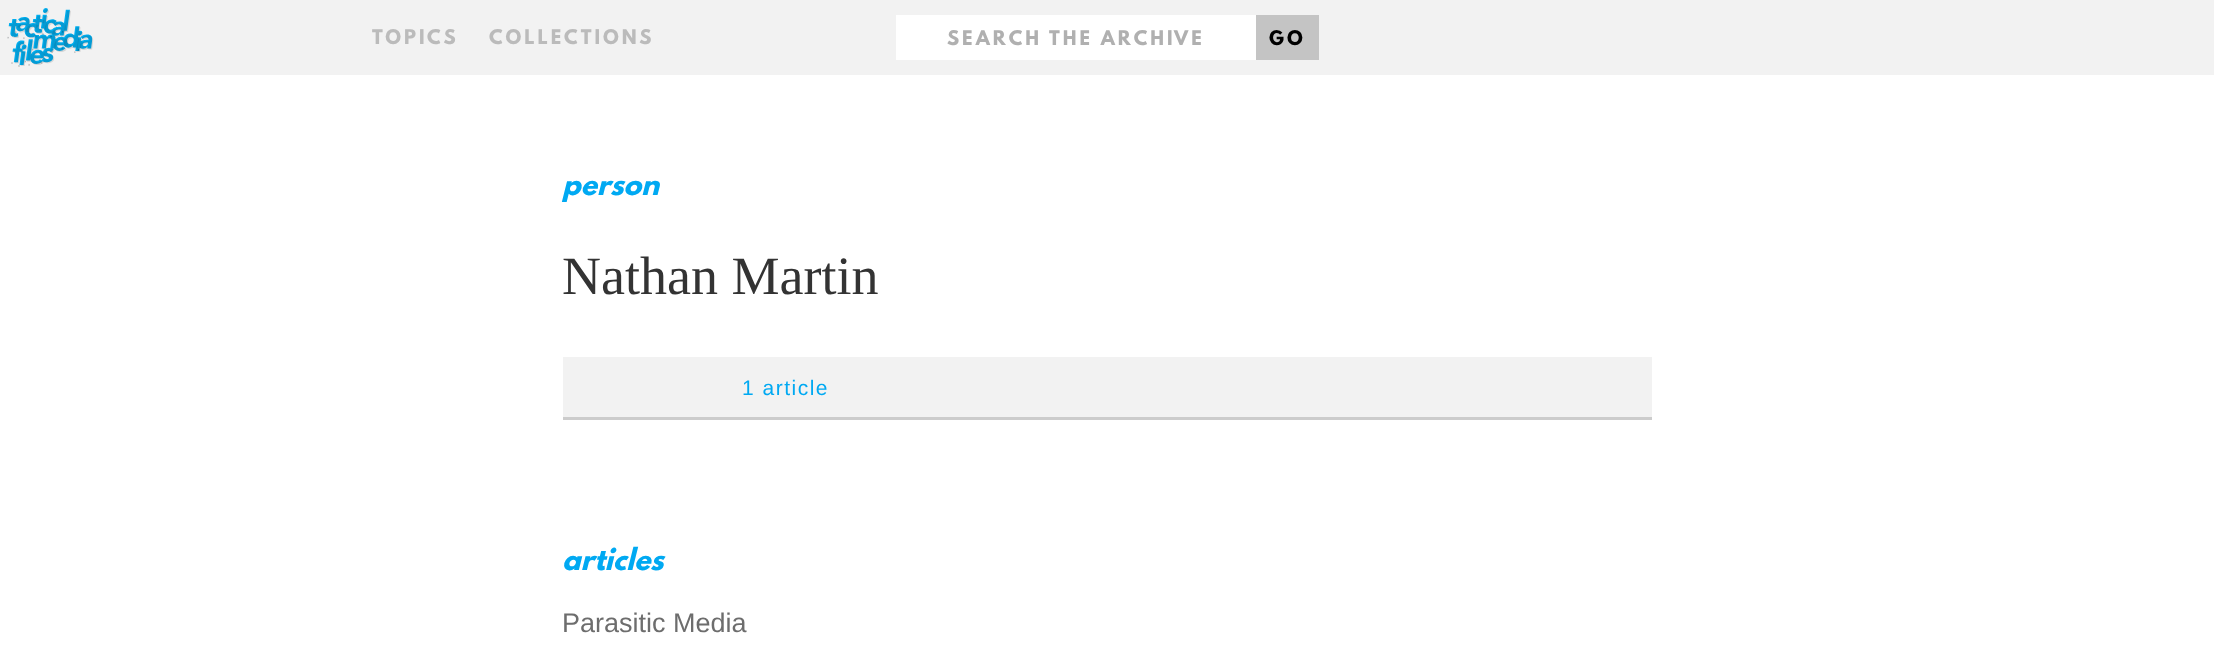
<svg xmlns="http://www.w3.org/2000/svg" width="2214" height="659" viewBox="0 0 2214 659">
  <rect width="100%" height="100%" fill="#fff"/>
  <path d="M0 0h2214v75H0z" fill="#f2f2f2"/>
  <image x="7" y="8" width="87" height="59" href="img/1.png"/>
  <path d="M896 15h360v45H896z" fill="#fff"/>
  <path d="M1256 15h63v45H1256z" fill="#c4c4c4"/>
  <path d="M563 357h1089v60H563z" fill="#f2f2f2"/>
  <path d="M563 417h1089v3H563z" fill="#ccc"/>
  <g font-family="League Spartan" font-size="18" font-weight="bold" letter-spacing="3" fill="#bbb">
    <text x="372" y="44">TOPICS</text>
    <text x="489" y="44">COLLECTIONS</text>
  </g>
  <text x="947" y="45" font-family="League Spartan" font-size="18" font-weight="bold" letter-spacing="3" fill="#b0b0b0">SEARCH THE ARCHIVE</text>
  <text x="1269" y="45" font-family="League Spartan" font-size="18" font-weight="bold" letter-spacing="3" fill="#000">GO</text>
  <text x="562" y="195" font-family="League Spartan" font-size="27" font-weight="bold" font-style="italic" fill="#00a9f2">person</text>
  <text x="562" y="294" font-family="Liberation Serif" font-size="54" fill="#333">Nathan Martin</text>
  <text x="742" y="395" font-family="Liberation Sans" font-size="21" letter-spacing="1.5" fill="#00a9f2">1 article</text>
  <text x="562" y="570" font-family="League Spartan" font-size="27" font-weight="bold" font-style="italic" fill="#00a9f2">articles</text>
  <text x="562" y="632" font-family="Liberation Sans" font-size="27" fill="#6d6d6d">Parasitic Media</text>
</svg>
